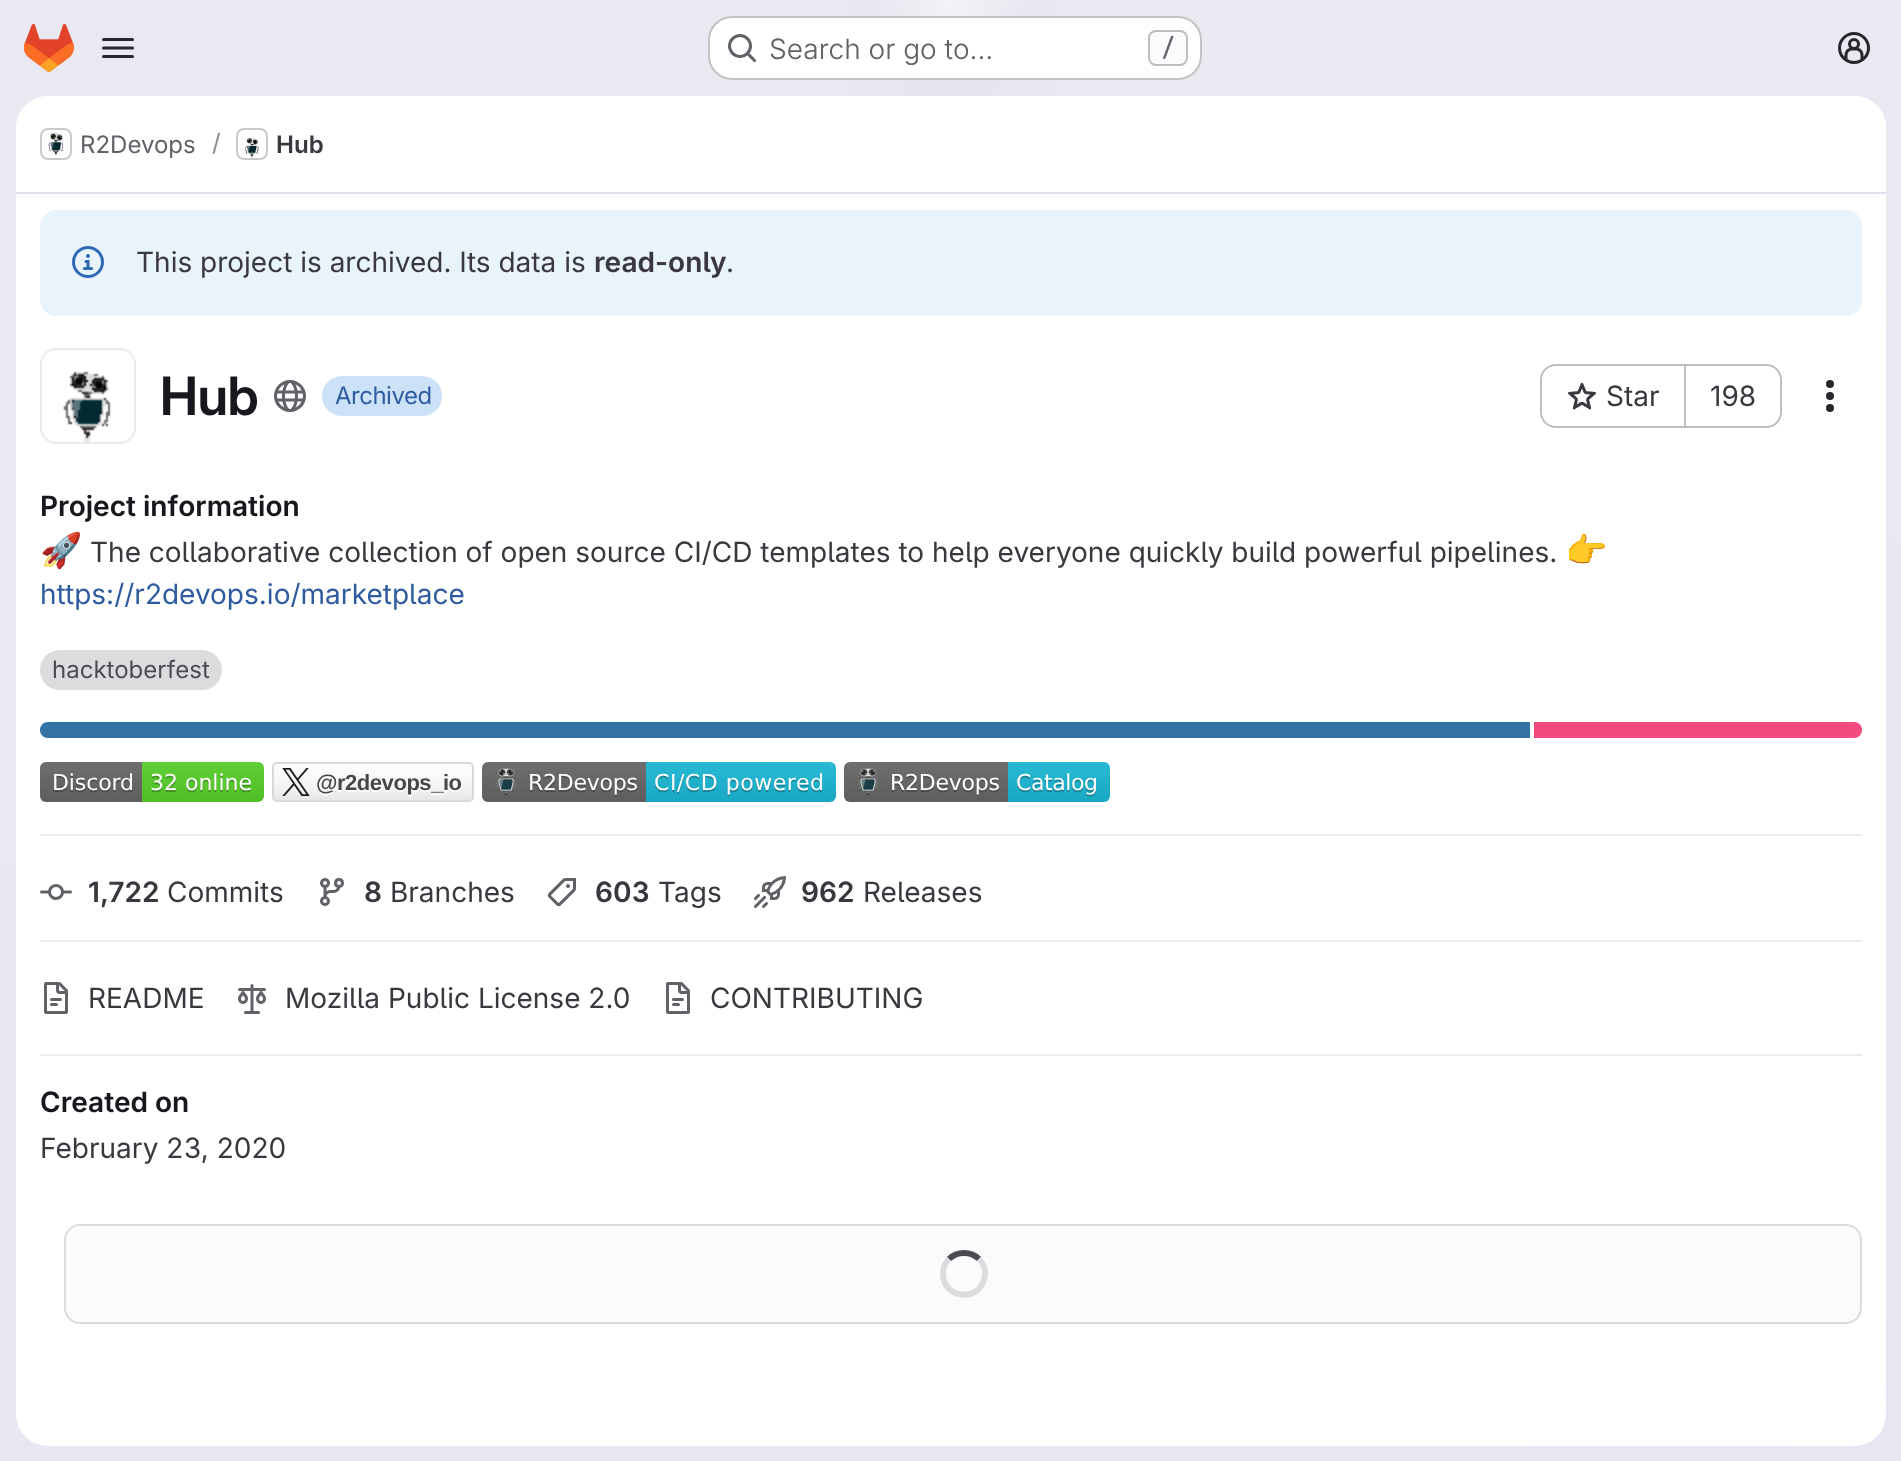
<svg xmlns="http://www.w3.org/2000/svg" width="1901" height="1461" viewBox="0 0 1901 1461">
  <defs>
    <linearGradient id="g1" gradientUnits="userSpaceOnUse" x1="1105" y1="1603" x2="797" y2="-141"><stop offset="0" stop-color="#e8e6f0"/><stop offset="0.7" stop-color="#eae9f2"/></linearGradient>
    <radialGradient id="g2" gradientUnits="userSpaceOnUse" cx="0" cy="0" r="1" gradientTransform="matrix(951 0 0 1462 951 0)"><stop offset="0" stop-color="#e4e2ed"/><stop offset="0.15" stop-color="#e4e2ed" stop-opacity="0"/></radialGradient>
    <radialGradient id="g3" gradientUnits="userSpaceOnUse" cx="0" cy="0" r="1" gradientTransform="matrix(951 0 0 1462 951 0)"><stop offset="0" stop-color="#e4e2ec"/><stop offset="0.11" stop-color="#e4e2ec" stop-opacity="0"/></radialGradient>
    <radialGradient id="g4" gradientUnits="userSpaceOnUse" cx="951" cy="0" r="1744"><stop offset="0" stop-color="#fff" stop-opacity="0.6"/><stop offset="0.05" stop-color="#fff" stop-opacity="0"/></radialGradient>
  </defs>
  <rect width="100%" height="100%" fill="#fff"/>
  <path d="M0 0h1901v1461H0z" fill="url(#g1)"/>
  <path d="M848 0h206v96H848z" fill="url(#g2)"/>
  <path d="M902 0h96v74H902z" fill="url(#g3)"/>
  <path d="M879 0h144v73H879z" fill="url(#g4)"/>
  <image x="24" y="24" width="50" height="48" href="img/1.png"/>
  <image x="102" y="38" width="32" height="20" href="img/2.png"/>
  <rect x="708" y="16" width="494" height="64" rx="24" fill="#fff"/>
  <rect x="709" y="17" width="492" height="62" rx="23" fill="none" stroke="#0505063d" stroke-width="2"/>
  <image x="728" y="34" width="29" height="29" href="img/3.png"/>
  <rect x="1149" y="31" width="38" height="34" rx="7" fill="#fbfafd" stroke="#bfbfc3" stroke-width="2"/>
  <image x="1838" y="32" width="32" height="32" href="img/4.png"/>
  <rect x="16" y="96" width="1870" height="1350" rx="32" fill="#fff"/>
  <path d="M48 96H1854C1871.5 96 1886 110.5 1886 128V194H16V128C16 110.5 30.5 96 48 96Z" fill="#fff"/>
  <path d="M16 192h1870v2H16z" fill="#e1dfec"/>
  <rect x="41" y="129" width="30" height="30" rx="7" fill="none" stroke="#dcdcde" stroke-width="2"/>
  <image x="48" y="133" width="16" height="22" href="img/5.png"/>
  <rect x="41" y="129" width="30" height="30" rx="7" fill="none" stroke="#05050614" stroke-width="2"/>
  <rect x="237" y="129" width="30" height="30" rx="7" fill="none" stroke="#dcdcde" stroke-width="2"/>
  <image x="245" y="137" width="14" height="21" href="img/6.png"/>
  <rect x="237" y="129" width="30" height="30" rx="7" fill="none" stroke="#05050614" stroke-width="2"/>
  <rect x="40" y="210" width="1822" height="106" rx="16" fill="#e9f3fc"/>
  <image x="72" y="246" width="32" height="32" href="img/7.png"/>
  <image x="63" y="371" width="48" height="71" href="img/8.png"/>
  <rect x="41" y="349" width="94" height="94" rx="15" fill="none" stroke="#ebebeb" stroke-width="2"/>
  <image x="274" y="380" width="32" height="32" href="img/9.png"/>
  <rect x="322" y="376" width="120" height="40" rx="20" fill="#cbe2f9"/>
  <path d="M1556 364H1684V428H1556C1547 428 1540 421 1540 412V380C1540 371 1547 364 1556 364ZM1556 366H1684V426H1556C1548 426 1542 420 1542 412V380C1542 372 1548 366 1556 366Z" fill="#bfbfc3" fill-rule="evenodd"/>
  <image x="1568" y="382" width="28" height="28" href="img/10.png"/>
  <path d="M1686 364H1766C1775 364 1782 371 1782 380V412C1782 421 1775 428 1766 428H1686ZM1686 366H1766C1774 366 1780 372 1780 380V412C1780 420 1774 426 1766 426H1686Z" fill="#bfbfc3" fill-rule="evenodd"/>
  <path d="M1684 364h2v64H1684z" fill="#bfbfc3"/>
  <image x="1826" y="380" width="8" height="32" href="img/11.png"/>
  <path d="M40 834h1822v2H40z" fill="#ececef"/>
  <rect x="40" y="650" width="182" height="40" rx="20" fill="#dcdcde"/>
  <path d="M48 722H1530V738H48C43.5 738 40 734.5 40 730C40 725.5 43.5 722 48 722Z" fill="#3572a5"/>
  <path d="M1534 722H1854C1858.5 722 1862 725.5 1862 730C1862 734.5 1858.5 738 1854 738H1534Z" fill="#f34b7d"/>
  <image x="40" y="762" width="224" height="40" href="img/12.png"/>
  <image x="272" y="762" width="202" height="40" href="img/13.png"/>
  <image x="482" y="762" width="354" height="40" href="img/14.png"/>
  <image x="844" y="762" width="266" height="40" href="img/15.png"/>
  <path d="M40 940h1822v2H40z" fill="#ececef"/>
  <image x="40" y="884" width="32" height="16" href="img/16.png"/>
  <image x="320" y="878" width="24" height="28" href="img/17.png"/>
  <image x="547" y="878" width="29" height="29" href="img/18.png"/>
  <image x="754" y="876" width="32" height="32" href="img/19.png"/>
  <path d="M40 1054h1822v2H40z" fill="#ececef"/>
  <image x="44" y="982" width="24" height="32" href="img/20.png"/>
  <image x="238" y="984" width="28" height="30" href="img/21.png"/>
  <image x="666" y="982" width="24" height="32" href="img/20.png"/>
  <rect x="65" y="1225" width="1796" height="98" rx="15" fill="#fbfafd" stroke="#dcdcde" stroke-width="2"/>
  <path d="M949 1259C957 1251 971 1251 979 1259" fill="none" stroke="#4c4b51" stroke-width="6"/>
  <path d="M979 1259C984 1264 986 1271.5 984.5 1278C979.5 1302.5 943 1299 943 1274C943 1268.5 945 1263 949 1259" fill="none" stroke="#dcdcde" stroke-width="6"/>
  <text x="769" y="59" font-family="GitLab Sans" font-size="28" font-weight="300" fill="#626168">Search or go to…</text>
  <text x="1161" y="56" font-family="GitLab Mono" font-size="24" font-weight="500" fill="#626168">/</text>
  <text x="80" y="153" font-family="GitLab Sans" font-size="24" fill="#626168">R2Devops</text>
  <text x="212" y="151" font-family="GitLab Sans" font-size="24" fill="#89888d">/</text>
  <text x="276" y="153" font-family="'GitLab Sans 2'" font-size="24" font-weight="600" fill="#3a383f">Hub</text>
  <text x="136" y="272" font-family="GitLab Sans" font-size="28" fill="#3a383f">This project is archived. Its data is</text>
  <text x="594" y="272" font-family="'GitLab Sans 2'" font-size="28" font-weight="600" fill="#3a383f">read-only</text>
  <text x="726" y="272" font-family="GitLab Sans" font-size="28" fill="#3a383f">.</text>
  <text x="160" y="415" font-family="GitLab Sans" font-size="53" font-weight="600" letter-spacing="-0.5" fill="#18171d">Hub</text>
  <text x="335" y="404" font-family="GitLab Sans" font-size="24" letter-spacing="-0.5" fill="#2f5ca0">Archived</text>
  <g font-family="GitLab Sans" font-size="28" fill="#3a383f">
    <text x="1606" y="406">Star</text>
    <text x="1710" y="406">198</text>
  </g>
  <text x="40" y="516" font-family="'GitLab Sans 2'" font-size="28" font-weight="600" fill="#18171d">Project information</text>
  <text x="40" y="562" font-family="Noto Color Emoji" font-size="34" fill="#3a383f">🚀</text>
  <text x="90" y="562" font-family="GitLab Sans" font-size="28" fill="#3a383f">The collaborative collection of open source CI/CD templates to help everyone quickly build powerful pipelines.</text>
  <text x="1565" y="562" font-family="Noto Color Emoji" font-size="34" fill="#3a383f">👉</text>
  <text x="40" y="604" font-family="GitLab Sans" font-size="28" fill="#2f5ca0">https://r2devops.io/marketplace</text>
  <text x="52" y="678" font-family="GitLab Sans" font-size="24" fill="#4c4b51">hacktoberfest</text>
  <text x="88" y="902" font-family="'GitLab Sans 2'" font-size="28" font-weight="600" fill="#3a383f">1,722</text>
  <text x="167" y="902" font-family="GitLab Sans" font-size="28" fill="#3a383f">Commits</text>
  <text x="364" y="902" font-family="'GitLab Sans 2'" font-size="28" font-weight="600" fill="#3a383f">8</text>
  <text x="390" y="902" font-family="GitLab Sans" font-size="28" fill="#3a383f">Branches</text>
  <text x="595" y="902" font-family="'GitLab Sans 2'" font-size="28" font-weight="600" fill="#3a383f">603</text>
  <text x="658" y="902" font-family="GitLab Sans" font-size="28" fill="#3a383f">Tags</text>
  <text x="801" y="902" font-family="'GitLab Sans 2'" font-size="28" font-weight="600" fill="#3a383f">962</text>
  <g font-family="GitLab Sans" font-size="28" fill="#3a383f">
    <text x="863" y="902">Releases</text>
    <text x="88" y="1008">README</text>
    <text x="285" y="1008">Mozilla Public License 2.0</text>
    <text x="710" y="1008">CONTRIBUTING</text>
  </g>
  <text x="40" y="1112" font-family="'GitLab Sans 2'" font-size="28" font-weight="600" fill="#18171d">Created on</text>
  <text x="40" y="1158" font-family="GitLab Sans" font-size="28" fill="#3a383f">February 23, 2020</text>
</svg>
